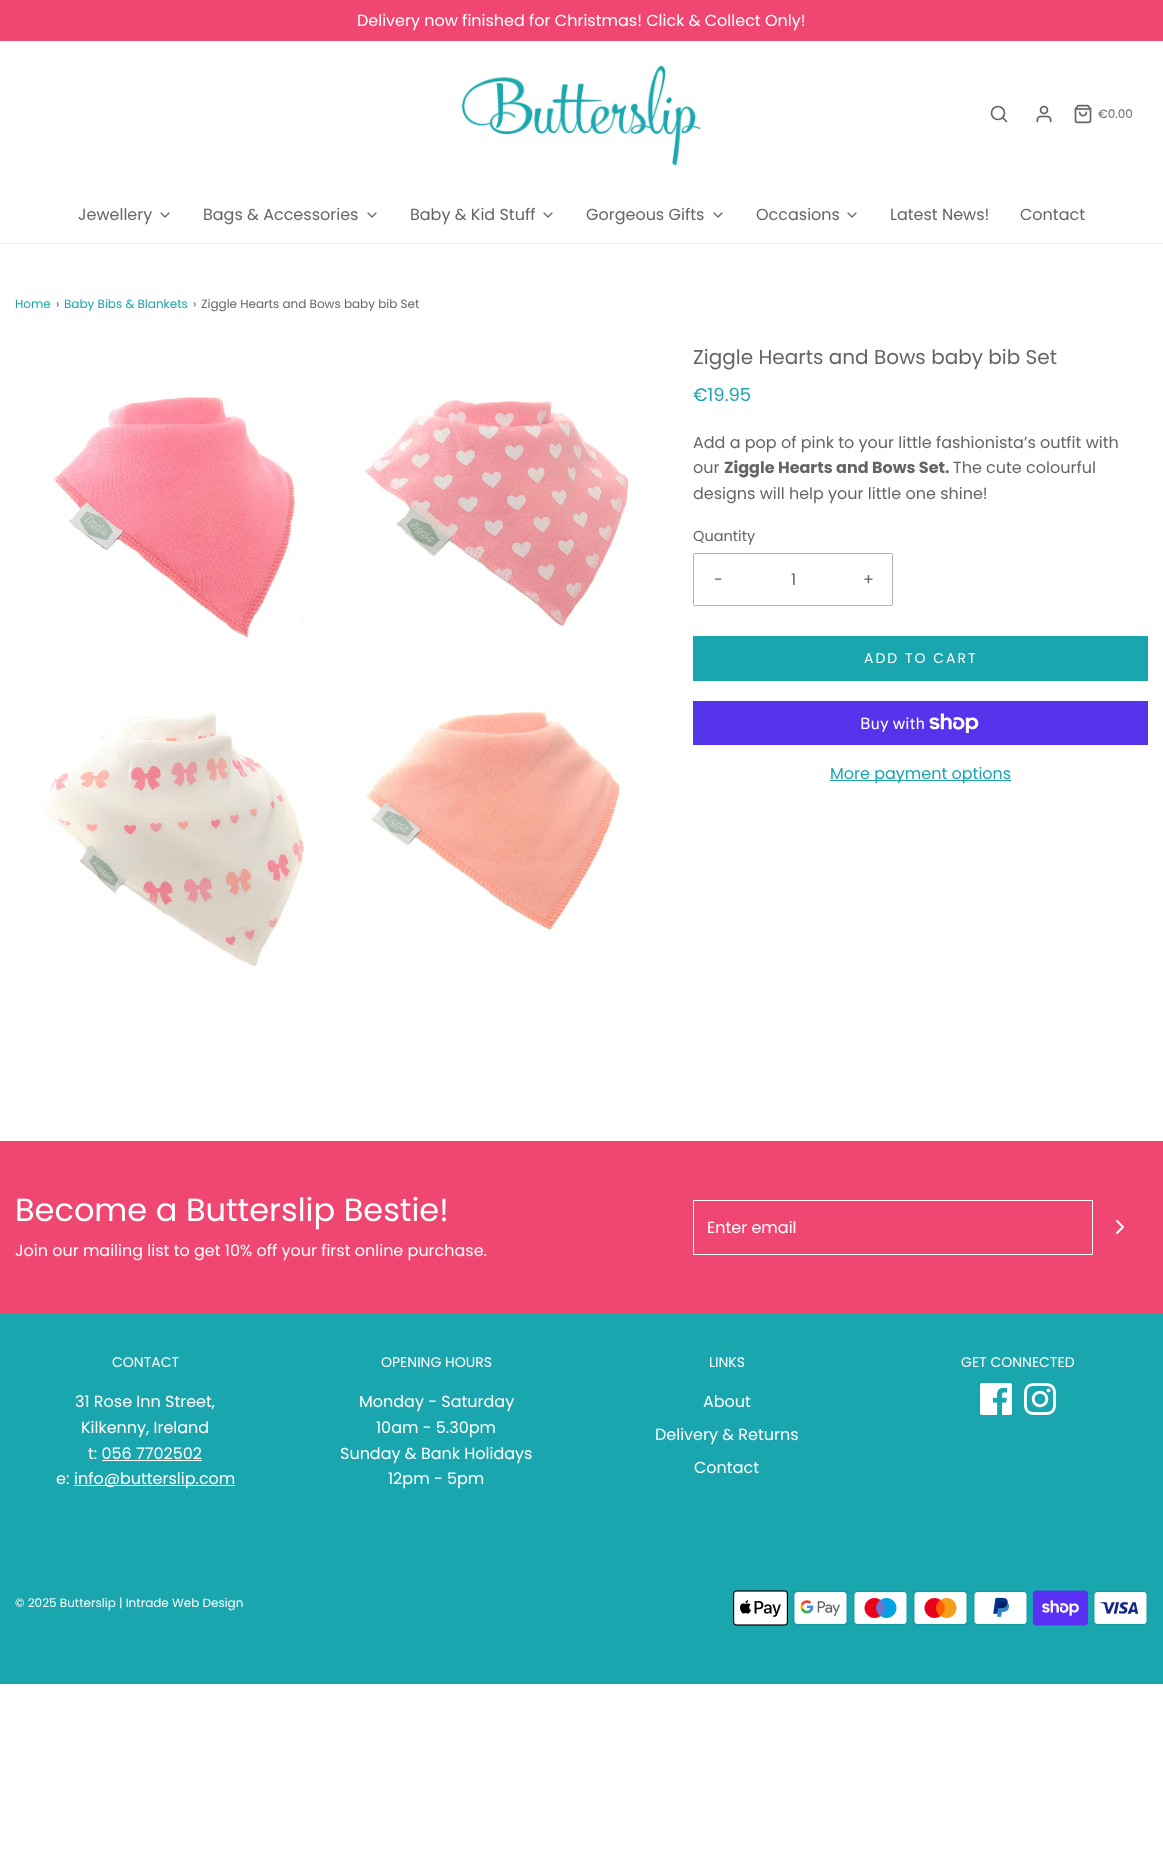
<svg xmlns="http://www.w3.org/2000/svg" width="1163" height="1874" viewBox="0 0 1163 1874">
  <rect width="100%" height="100%" fill="#fff"/>
  <path d="M0 0h1163v41H0z" fill="#ef4772"/>
  <path d="M0 243h1163v1H0z" fill="#f0f0f0"/>
  <image x="461" y="65" width="241" height="102" href="img/1.png"/>
  <circle cx="998" cy="113" r="6.5" fill="none" stroke="#656565" stroke-width="1.7"/>
  <path d="M1006.5 121.5L1003 118" fill="none" stroke="#656565" stroke-width="1.7" stroke-linecap="round" stroke-linejoin="round"/>
  <image x="1036" y="105" width="16" height="18" href="img/2.png"/>
  <image x="1074" y="104" width="18" height="20" href="img/3.png"/>
  <path d="M161 213L165 217L169 213" fill="none" stroke="#656565" stroke-width="1.3" stroke-linecap="round" stroke-linejoin="round"/>
  <path d="M368 213L372 217L376 213" fill="none" stroke="#656565" stroke-width="1.3" stroke-linecap="round" stroke-linejoin="round"/>
  <path d="M544 213L548 217L552 213" fill="none" stroke="#656565" stroke-width="1.3" stroke-linecap="round" stroke-linejoin="round"/>
  <path d="M714 213L718 217L722 213" fill="none" stroke="#656565" stroke-width="1.3" stroke-linecap="round" stroke-linejoin="round"/>
  <path d="M848 213L852 217L856 213" fill="none" stroke="#656565" stroke-width="1.3" stroke-linecap="round" stroke-linejoin="round"/>
  <image x="41" y="395" width="591" height="572" href="img/4.png"/>
  <rect x="693.5" y="553.5" width="199" height="52" rx="1.5" fill="none" stroke="#b2b2b2"/>
  <path d="M694 554h1v51H694z" fill="#fff"/>
  <path d="M891 554h1v51H891z" fill="#fff"/>
  <path d="M693 636h455v45H693z" fill="#1aa6ae"/>
  <path d="M693 701h455v44H693z" fill="#5433eb"/>
  <image x="929" y="713" width="50" height="20" href="img/5.png"/>
  <path d="M830 780h181v1H830z" fill="#1aa6ae"/>
  <path d="M0 1141h1163v172H0z" fill="#ef4772"/>
  <path d="M693.5 1200.5h399v54H693.5z" fill="none" stroke="#fff"/>
  <path d="M1117 1233L1123 1227L1117 1221" fill="none" stroke="#fff" stroke-width="2" stroke-linecap="round" stroke-linejoin="round"/>
  <path d="M0 1313h1163v371H0z" fill="#1aa6ae"/>
  <path d="M102 1460h100v1H102z" fill="#fff"/>
  <path d="M74 1485h161v1H74z" fill="#fff"/>
  <image x="980" y="1383" width="32" height="32" href="img/6.png"/>
  <image x="1024" y="1383" width="32" height="32" href="img/7.png"/>
  <image x="733" y="1590" width="55" height="36" href="img/8.png"/>
  <image x="793" y="1590" width="55" height="36" href="img/9.png"/>
  <image x="853" y="1590" width="55" height="36" href="img/10.png"/>
  <image x="913" y="1590" width="55" height="36" href="img/11.png"/>
  <image x="973" y="1590" width="55" height="36" href="img/12.png"/>
  <image x="1033" y="1590" width="55" height="36" href="img/13.png"/>
  <image x="1093" y="1590" width="55" height="36" href="img/14.png"/>
  <text x="357" y="26" font-family="Poppins" font-size="16" fill="#fff">Delivery now finished for Christmas! Click &amp; Collect Only!</text>
  <text x="1098" y="118" font-family="Poppins" font-size="12" fill="#656565">€0.00</text>
  <g font-family="Poppins" font-size="16" fill="#656565">
    <text x="78" y="220">Jewellery</text>
    <text x="203" y="220">Bags &amp; Accessories</text>
    <text x="410" y="220">Baby &amp; Kid Stuff</text>
    <text x="586" y="220">Gorgeous Gifts</text>
    <text x="756" y="220">Occasions</text>
    <text x="890" y="220">Latest News!</text>
    <text x="1020" y="220">Contact</text>
  </g>
  <text x="15" y="308" font-family="Poppins" font-size="12" fill="#1aa6ae">Home</text>
  <text x="56" y="308" font-family="Poppins" font-size="12" fill="#656565">›</text>
  <text x="64" y="308" font-family="Poppins" font-size="12" fill="#1aa6ae">Baby Bibs &amp; Blankets</text>
  <g font-family="Poppins" font-size="12" fill="#656565">
    <text x="193" y="308">›</text>
    <text x="201" y="308">Ziggle Hearts and Bows baby bib Set</text>
  </g>
  <text x="693" y="364" font-family="Poppins" font-size="20" fill="#656565">Ziggle Hearts and Bows baby bib Set</text>
  <text x="693" y="401" font-family="Poppins" font-size="18" fill="#1aa6ae">€19.95</text>
  <g font-family="Poppins" font-size="16" fill="#656565">
    <text x="693" y="448">Add a pop of pink to your little fashionista’s outfit with</text>
    <text x="693" y="473">our</text>
  </g>
  <text x="724" y="473" font-family="Poppins" font-size="16" font-weight="bold" fill="#656565">Ziggle Hearts and Bows Set.</text>
  <g font-family="Poppins" font-size="16" fill="#656565">
    <text x="953" y="473">The cute colourful</text>
    <text x="693" y="499">designs will help your little one shine!</text>
  </g>
  <text x="693" y="541" font-family="Poppins" font-size="14.5" fill="#656565">Quantity</text>
  <g font-family="Poppins" font-size="16" fill="#656565">
    <text x="714" y="585">-</text>
    <text x="791" y="585">1</text>
    <text x="863" y="585">+</text>
  </g>
  <text x="864" y="663" font-family="Poppins" font-size="14" letter-spacing="2" fill="#fff">ADD TO CART</text>
  <text x="860" y="729" font-family="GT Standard" font-size="16" fill="#fff">Buy with</text>
  <text x="830" y="779" font-family="Poppins" font-size="16" fill="#1aa6ae">More payment options</text>
  <text x="15" y="1221" font-family="Poppins" font-size="32" fill="#fff">Become a Butterslip Bestie!</text>
  <g font-family="Poppins" font-size="16" fill="#fff">
    <text x="15" y="1256">Join our mailing list to get 10% off your first online purchase.</text>
    <text x="707" y="1233">Enter email</text>
  </g>
  <text x="112" y="1367" font-family="Poppins" font-size="14" fill="#fff">CONTACT</text>
  <g font-family="Poppins" font-size="16" fill="#fff">
    <text x="75" y="1407">31 Rose Inn Street,</text>
    <text x="81" y="1433">Kilkenny, Ireland</text>
    <text x="88" y="1459">t: 056 7702502</text>
    <text x="56" y="1484">e:</text>
    <text x="74" y="1484">info@butterslip.com</text>
  </g>
  <text x="381" y="1367" font-family="Poppins" font-size="14" fill="#fff">OPENING HOURS</text>
  <g font-family="Poppins" font-size="16" fill="#fff">
    <text x="359" y="1407">Monday - Saturday</text>
    <text x="376" y="1433">10am - 5.30pm</text>
    <text x="340" y="1459">Sunday &amp; Bank Holidays</text>
    <text x="388" y="1484">12pm - 5pm</text>
  </g>
  <text x="709" y="1367" font-family="Poppins" font-size="14" fill="#fff">LINKS</text>
  <g font-family="Poppins" font-size="16" fill="#fff">
    <text x="703" y="1407">About</text>
    <text x="655" y="1440">Delivery &amp; Returns</text>
    <text x="694" y="1473">Contact</text>
  </g>
  <text x="961" y="1367" font-family="Poppins" font-size="14" fill="#fff">GET CONNECTED</text>
  <text x="15" y="1607" font-family="Poppins" font-size="12" fill="#fff">© 2025 Butterslip | Intrade Web Design</text>
</svg>
